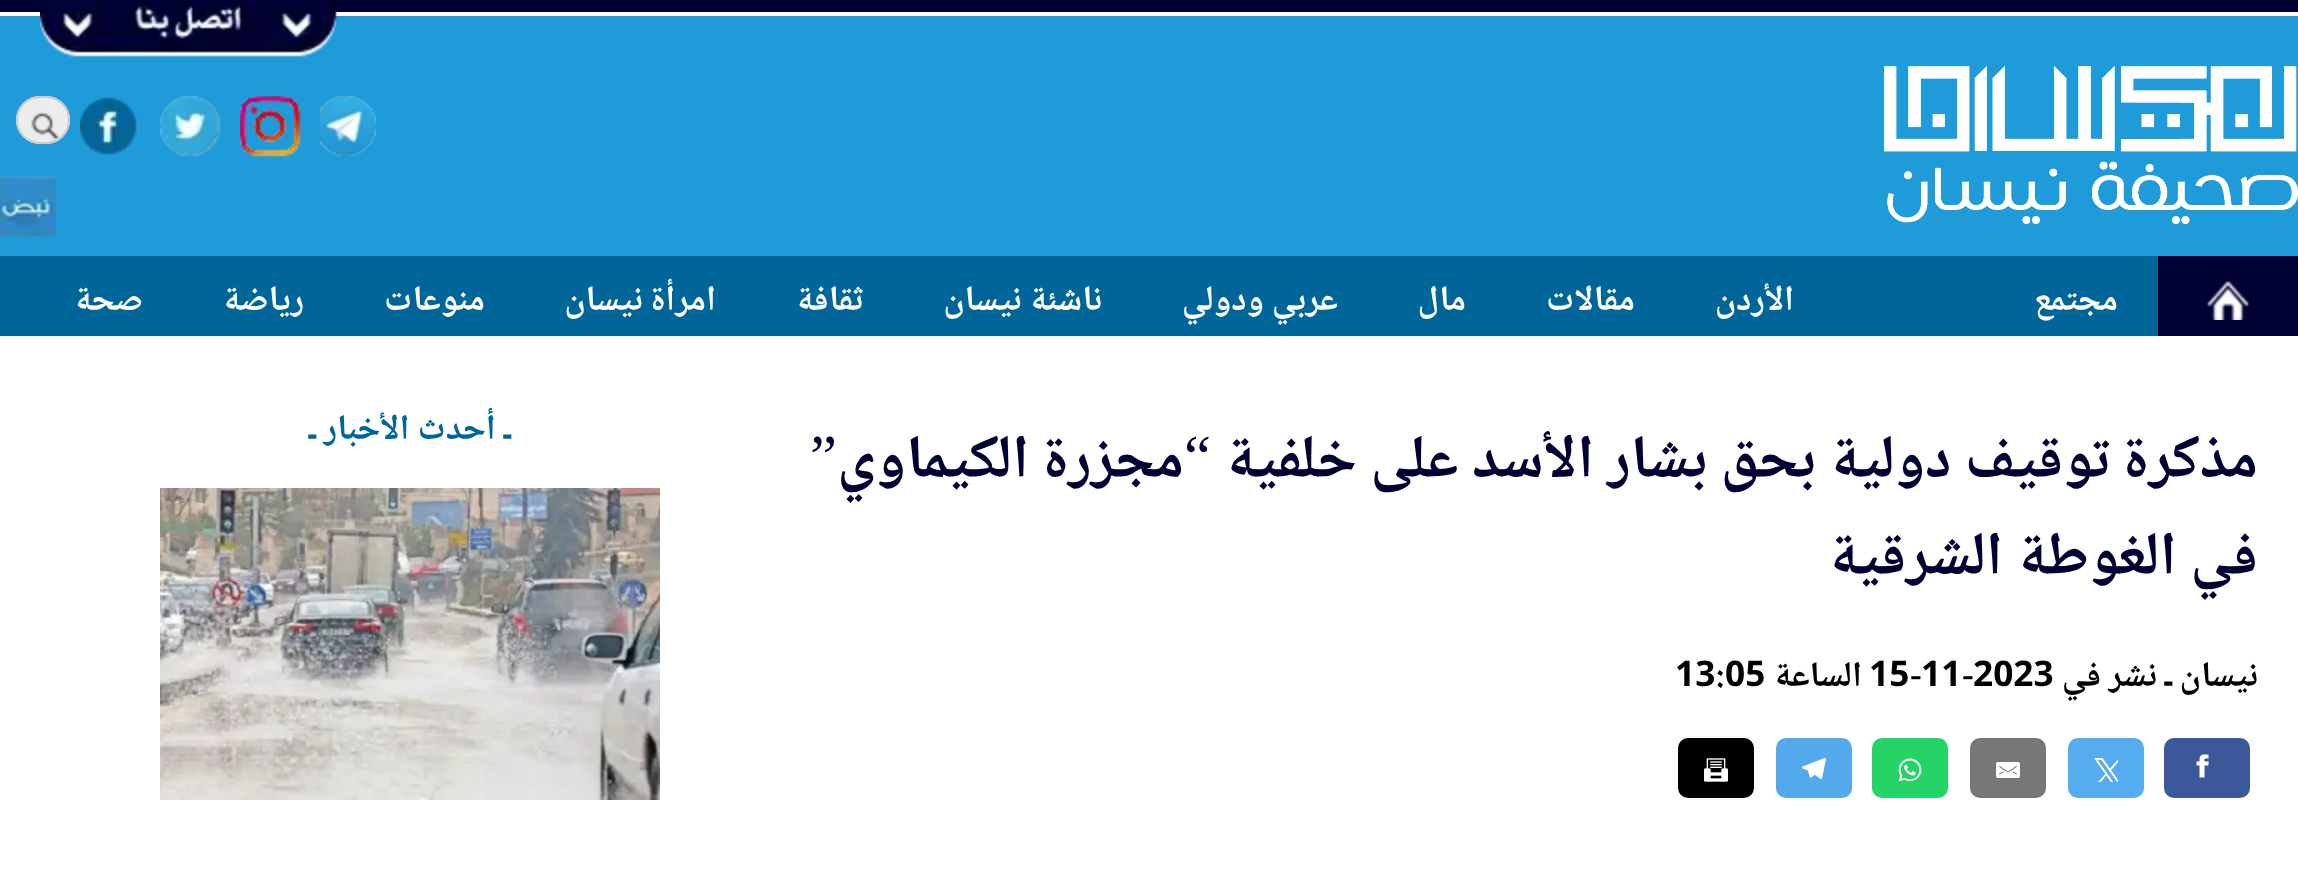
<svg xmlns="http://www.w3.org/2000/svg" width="2298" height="873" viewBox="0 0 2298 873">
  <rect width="100%" height="100%" fill="#fff"/>
  <path d="M0 16h2298v240H0z" fill="#1e9bd8"/>
  <path d="M0 0h2298v12H0z" fill="#003"/>
  <image x="40" y="0" width="297" height="57" href="img/1.png"/>
  <image x="1884" y="66" width="414" height="158" href="img/2.png"/>
  <image x="320" y="96" width="56" height="61" href="img/3.png"/>
  <image x="240" y="96" width="61" height="61" href="img/4.png"/>
  <image x="160" y="96" width="61" height="61" href="img/5.png"/>
  <image x="80" y="97" width="57" height="58" href="img/6.png"/>
  <rect x="16" y="96" width="54" height="48" rx="24" fill="#ededed"/>
  <image x="31" y="111" width="28" height="30" href="img/7.png"/>
  <rect x="17" y="97" width="52" height="46" rx="23" fill="none" stroke="#ccc" stroke-width="2"/>
  <image x="0" y="176" width="56" height="61" href="img/8.png"/>
  <path d="M0 256h2158v80H0z" fill="#069"/>
  <path d="M2158 256h140v80H2158z" fill="#003"/>
  <image x="2207" y="281" width="42" height="39" href="img/9.png"/>
  <rect x="2164" y="738" width="86" height="60" rx="10" fill="#3b5998"/>
  <image x="2196" y="754" width="13" height="24" href="img/10.png"/>
  <rect x="2068" y="738" width="76" height="60" rx="10" fill="#55acee"/>
  <image x="2094" y="758" width="24" height="24" href="img/11.png"/>
  <rect x="1970" y="738" width="76" height="60" rx="10" fill="#777"/>
  <image x="1996" y="762" width="24" height="16" href="img/12.png"/>
  <rect x="1872" y="738" width="76" height="60" rx="10" fill="#25d366"/>
  <image x="1898" y="758" width="24" height="24" href="img/13.png"/>
  <rect x="1776" y="738" width="76" height="60" rx="10" fill="#54a9eb"/>
  <image x="1802" y="758" width="24" height="21" href="img/14.png"/>
  <rect x="1678" y="738" width="76" height="60" rx="10" fill="#000"/>
  <image x="1704" y="758" width="24" height="24" href="img/15.png"/>
  <image x="160" y="488" width="500" height="312" href="img/16.png"/>
  <g font-family="Noto Naskh Arabic" font-size="35.25" font-weight="bold" direction="rtl" fill="#fff">
    <text x="2118" y="310">مجتمع</text>
    <text x="1794" y="310">الأردن</text>
    <text x="1635" y="310">مقالات</text>
    <text x="1466" y="310">مال</text>
    <text x="1338" y="310">عربي ودولي</text>
    <text x="1102" y="310">ناشئة نيسان</text>
    <text x="863" y="310">ثقافة</text>
    <text x="716" y="310">امرأة نيسان</text>
    <text x="485" y="310">منوعات</text>
    <text x="304" y="310">رياضة</text>
    <text x="143" y="310">صحة</text>
  </g>
  <text x="2258" y="477" font-family="Noto Naskh Arabic" font-size="60.75" font-weight="bold" direction="rtl" fill="#003">مذكرة توقيف دولية بحق بشار الأسد على خلفية</text>
  <text x="1211" y="477" font-family="Liberation Serif" font-size="60.75" direction="rtl" fill="#003">“</text>
  <text x="1184" y="477" font-family="Noto Naskh Arabic" font-size="60.75" font-weight="bold" direction="rtl" fill="#003">مجزرة الكيماوي</text>
  <text x="837" y="477" font-family="Liberation Serif" font-size="60.75" direction="rtl" fill="#003">”</text>
  <text x="2258" y="574" font-family="Noto Naskh Arabic" font-size="60.75" font-weight="bold" direction="rtl" fill="#003">في الغوطة الشرقية</text>
  <g font-family="Noto Naskh Arabic" font-size="35.25" font-weight="bold" direction="rtl" fill="#000">
    <text x="2258" y="686">نيسان ـ</text>
    <text x="2157" y="686">نشر في</text>
  </g>
  <text x="1973" y="686" font-family="Noto Naskh Arabic" font-size="35.25" font-weight="bold" fill="#000">2023</text>
  <text x="1962" y="686" font-family="Liberation Serif" font-size="35.25" font-weight="bold" fill="#000">-</text>
  <text x="1921" y="686" font-family="Noto Naskh Arabic" font-size="35.25" font-weight="bold" fill="#000">11</text>
  <text x="1910" y="686" font-family="Liberation Serif" font-size="35.25" font-weight="bold" fill="#000">-</text>
  <text x="1869" y="686" font-family="Noto Naskh Arabic" font-size="35.25" font-weight="bold" fill="#000">15</text>
  <text x="1862" y="686" font-family="Noto Naskh Arabic" font-size="35.25" font-weight="bold" direction="rtl" fill="#000">الساعة</text>
  <text x="1675" y="686" font-family="Noto Naskh Arabic" font-size="35.25" font-weight="bold" fill="#000">13:05</text>
  <text x="511" y="439" font-family="Noto Naskh Arabic" font-size="35.25" font-weight="bold" direction="rtl" fill="#069">ـ أحدث الأخبار ـ</text>
</svg>
